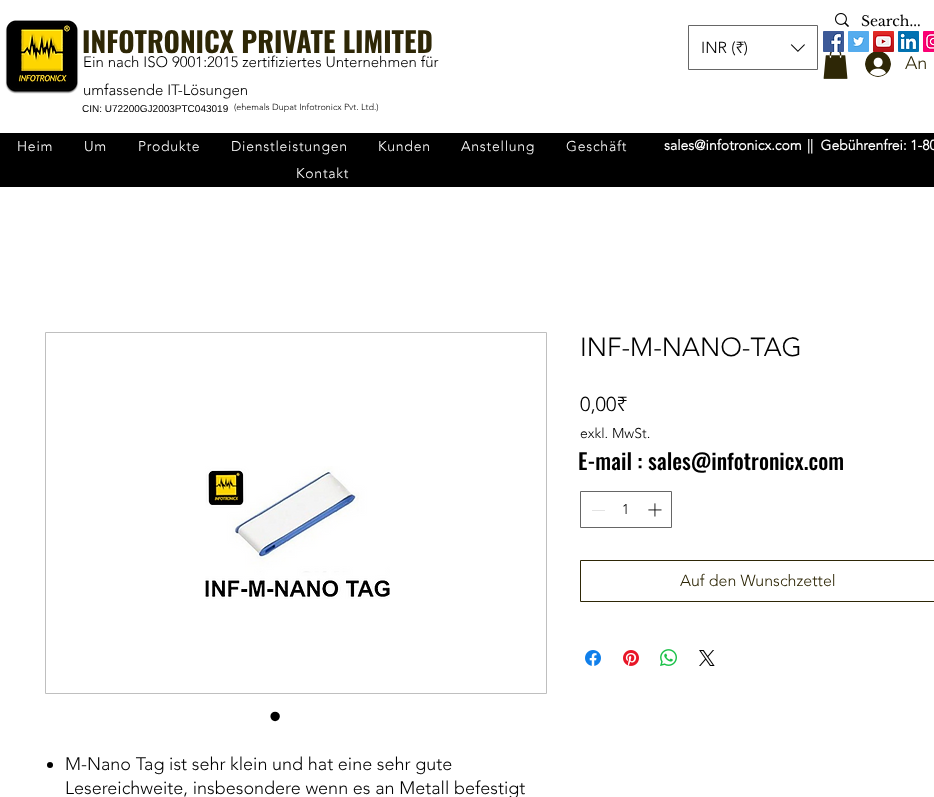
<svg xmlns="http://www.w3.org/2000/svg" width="934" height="797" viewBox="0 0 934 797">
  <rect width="100%" height="100%" fill="#fff"/>
  <image x="5" y="20" width="74" height="74" href="img/1.png"/>
  <image x="835" y="13" width="14" height="14" href="img/2.png"/>
  <image x="823" y="31" width="21" height="21" href="img/3.png"/>
  <image x="865" y="51" width="26" height="26" href="img/9.png"/>
  <image x="848" y="31" width="21" height="21" href="img/4.png"/>
  <image x="873" y="31" width="21" height="21" href="img/5.png"/>
  <image x="898" y="31" width="21" height="21" href="img/6.png"/>
  <image x="923" y="31" width="11" height="21" href="img/7.png"/>
  <image x="823" y="52" width="25" height="27" href="img/8.png"/>
  <path d="M688.5 25.5h129v44H688.5z" fill="none" stroke="#666"/>
  <image x="790" y="44" width="15" height="8" href="img/10.png"/>
  <path d="M0 133h934v54H0z" fill="#000"/>
  <path d="M580.5 491.5h91v36H580.5z" fill="none" stroke="#666"/>
  <path d="M592 510h13v1H592z" fill="#e3e3e3"/>
  <image x="648" y="503" width="14" height="14" href="img/11.png"/>
  <path d="M580.5 560.5h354v41H580.5z" fill="none" stroke="#2e2706"/>
  <image x="585" y="650" width="16" height="16" href="img/12.png"/>
  <image x="623" y="650" width="16" height="16" href="img/13.png"/>
  <image x="660" y="649" width="17" height="17" href="img/14.png"/>
  <image x="699" y="650" width="16" height="16" href="img/15.png"/>
  <path d="M45.5 332.5h501v361H45.5z" fill="none" stroke="#bfbfbf"/>
  <image x="205" y="466" width="185" height="133" href="img/16.png"/>
  <circle cx="50" cy="765" r="3" fill="#000"/>
  <text x="82" y="53" font-family="Oswald" font-size="28" font-weight="bold" fill="#2e2706">INFOTRONICX PRIVATE LIMITED</text>
  <g font-family="'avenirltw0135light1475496'" font-size="15" font-weight="300" fill="#000">
    <text x="83" y="67">Ein nach ISO 9001:2015 zertifiziertes Unternehmen für</text>
    <text x="83" y="95">umfassende IT-Lösungen</text>
  </g>
  <text x="82" y="112" font-family="Liberation Sans" font-size="10" fill="#000">CIN: U72200GJ2003PTC043019</text>
  <text x="234" y="110" font-family="'avenirltw0135light1475496'" font-size="9" font-weight="300" fill="#000">(ehemals Dupat Infotronicx Pvt. Ltd.)</text>
  <text x="861" y="26" font-family="Libre Baskerville" font-size="14" fill="#000">Search...</text>
  <text x="905" y="69" font-family="'avenirltw0135light1475496'" font-size="18" font-weight="300" fill="#2e2706">An</text>
  <text x="701" y="53" font-family="'avenirltw0135light1475496'" font-size="16" font-weight="300" fill="#000">INR (₹)</text>
  <g font-family="'avenirltw0135light1475496'" font-size="14" font-weight="300" letter-spacing="0.75" fill="#fff">
    <text x="17" y="151">Heim</text>
    <text x="84" y="151">Um</text>
    <text x="138" y="151">Produkte</text>
    <text x="231" y="151">Dienstleistungen</text>
    <text x="378" y="151">Kunden</text>
    <text x="461" y="151">Anstellung</text>
    <text x="566" y="151">Geschäft</text>
    <text x="296" y="178">Kontakt</text>
  </g>
  <g font-family="'avenirltw0135light1475496'" font-size="14" font-weight="bold" fill="#fff">
    <text x="664" y="150">sales@infotronicx.com</text>
    <text x="807" y="150" xml:space="preserve">||  Gebührenfrei: 1-80</text>
  </g>
  <text x="580" y="356" font-family="'avenirltw0135light1475496'" font-size="26" font-weight="300" fill="#000">INF-M-NANO-TAG</text>
  <text x="580" y="411" font-family="'avenirltw0135light1475496'" font-size="20" font-weight="300" fill="#000">0,00₹</text>
  <g font-family="'avenirltw0135light1475496'" font-size="14" font-weight="300" fill="#000">
    <text x="580" y="438">exkl. MwSt.</text>
    <text x="622" y="514">1</text>
  </g>
  <text x="680" y="586" font-family="'avenirltw0135light1475496'" font-size="16" font-weight="300" fill="#2e2706">Auf den Wunschzettel</text>
  <text x="269" y="728" font-family="Liberation Sans" font-size="35" fill="#000">•</text>
  <g font-family="'avenirltw0135light1475496'" font-size="18" font-weight="300" fill="#000">
    <text x="65" y="770">M-Nano Tag ist sehr klein und hat eine sehr gute</text>
    <text x="65" y="794">Lesereichweite, insbesondere wenn es an Metall befestigt</text>
  </g>
  <text x="578" y="470" font-family="Oswald" font-size="22" font-weight="500" fill="#000">E-mail : sales@infotronicx.com</text>
</svg>
